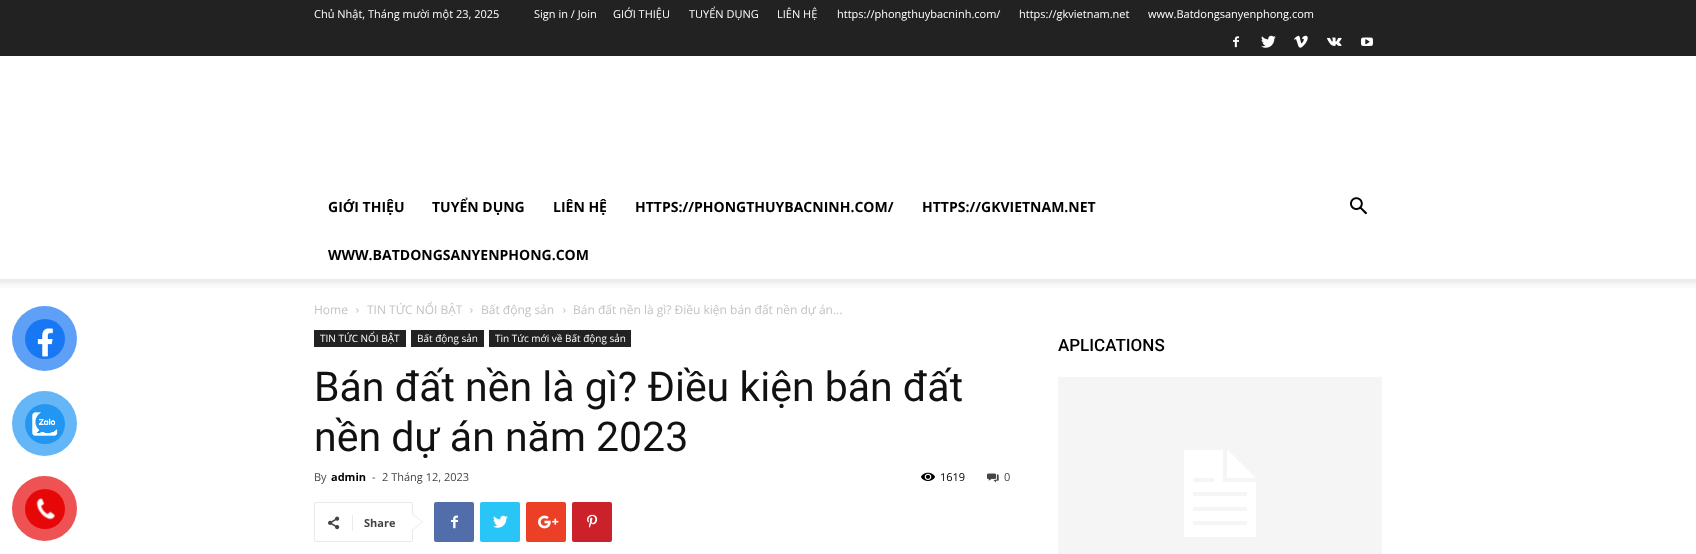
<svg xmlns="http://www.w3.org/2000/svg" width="1696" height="554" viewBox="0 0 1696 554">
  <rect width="100%" height="100%" fill="#fff"/>
  <circle cx="44.5" cy="338.5" r="32.5" fill="#5da0f6"/>
  <circle cx="45" cy="339" r="20" fill="#1877f2"/>
  <image x="37" y="328" width="17" height="29" href="img/1.png"/>
  <circle cx="44.5" cy="423.5" r="32.5" fill="#64b6f7"/>
  <circle cx="45" cy="424" r="20" fill="#2196f3"/>
  <image x="32" y="412" width="26" height="24" href="img/2.png"/>
  <circle cx="44.5" cy="508.5" r="32.5" fill="#ee5252"/>
  <circle cx="45" cy="509" r="20" fill="#e60808"/>
  <image x="36" y="498" width="19" height="22" href="img/3.png"/>
  <path d="M0 0h1696v56H0z" fill="#222"/>
  <image x="1233" y="36" width="6" height="12" href="img/4.png"/>
  <image x="1261" y="35" width="15" height="13" href="img/5.png"/>
  <image x="1294" y="35" width="14" height="13" href="img/6.png"/>
  <image x="1327" y="37" width="15" height="9" href="img/7.png"/>
  <image x="1361" y="37" width="12" height="9" href="img/8.png"/>
  <image x="1350" y="197" width="17" height="18" href="img/9.png"/>
  <image x="0" y="279" width="1696" height="9" href="img/10.png"/>
  <image x="356" y="308" width="3" height="5" href="img/11.png"/>
  <image x="470" y="308" width="3" height="5" href="img/11.png"/>
  <image x="563" y="308" width="3" height="5" href="img/11.png"/>
  <path d="M314 330h92v17H314z" fill="#222"/>
  <path d="M411 330h73v17H411z" fill="#222"/>
  <path d="M489 330h142v17H489z" fill="#222"/>
  <image x="921" y="472" width="14" height="9" href="img/12.png"/>
  <image x="987" y="473" width="12" height="10" href="img/13.png"/>
  <rect x="314.5" y="502.5" width="98" height="39" rx="1.5" fill="none" stroke="#e9e9e9"/>
  <path d="M412 531V513L423 522Z" fill="#e9e9e9"/>
  <image x="328" y="516" width="12" height="14" href="img/14.png"/>
  <path d="M352 515h1v16H352z" fill="#ebebeb"/>
  <path d="M412 530V514L422 522Z" fill="#fff"/>
  <rect x="434" y="502" width="40" height="40" rx="2" fill="#516eab"/>
  <image x="451" y="515" width="7" height="14" href="img/15.png"/>
  <rect x="480" y="502" width="40" height="40" rx="2" fill="#29c5f6"/>
  <image x="493" y="515" width="15" height="13" href="img/16.png"/>
  <rect x="526" y="502" width="40" height="40" rx="2" fill="#eb4026"/>
  <image x="538" y="515" width="21" height="14" href="img/17.png"/>
  <rect x="572" y="502" width="40" height="40" rx="2" fill="#ca212a"/>
  <image x="587" y="514" width="11" height="14" href="img/18.png"/>
  <image x="1058" y="377" width="324" height="177" href="img/19.png"/>
  <g font-family="Open Sans" font-size="11" fill="#fff">
    <text x="314" y="18">Chủ Nhật, Tháng mười một 23, 2025</text>
    <text x="534" y="18">Sign in / Join</text>
    <text x="613" y="18">GIỚI THIỆU</text>
    <text x="689" y="18">TUYỂN DỤNG</text>
    <text x="777" y="18">LIÊN HỆ</text>
    <text x="837" y="18">https://phongthuybacninh.com/</text>
    <text x="1019" y="18">https://gkvietnam.net</text>
    <text x="1148" y="18">www.Batdongsanyenphong.com</text>
  </g>
  <g font-family="Open Sans" font-size="14" font-weight="bold" fill="#000">
    <text x="328" y="212">GIỚI THIỆU</text>
    <text x="432" y="212">TUYỂN DỤNG</text>
    <text x="553" y="212">LIÊN HỆ</text>
    <text x="635" y="212">HTTPS://PHONGTHUYBACNINH.COM/</text>
    <text x="922" y="212">HTTPS://GKVIETNAM.NET</text>
    <text x="328" y="260">WWW.BATDONGSANYENPHONG.COM</text>
  </g>
  <g font-family="Open Sans" font-size="12" fill="#c3c3c3">
    <text x="314" y="314">Home</text>
    <text x="367" y="314">TIN TỨC NỔI BẬT</text>
    <text x="481" y="314">Bất động sản</text>
    <text x="573" y="314">Bán đất nền là gì? Điều kiện bán đất nền dự án...</text>
  </g>
  <g font-family="Open Sans" font-size="10" fill="#fff">
    <text x="320" y="342">TIN TỨC NỔI BẬT</text>
    <text x="417" y="342">Bất động sản</text>
    <text x="495" y="342">Tin Tức mới về Bất động sản</text>
  </g>
  <g font-family="Roboto" font-size="41" fill="#111">
    <text x="314" y="401">Bán đất nền là gì? Điều kiện bán đất</text>
    <text x="314" y="451">nền dự án năm 2023</text>
  </g>
  <text x="314" y="481" font-family="Open Sans" font-size="11" fill="#444">By</text>
  <text x="331" y="481" font-family="Open Sans" font-size="11" font-weight="bold" fill="#000">admin</text>
  <g font-family="Open Sans" font-size="11" fill="#444">
    <text x="372" y="481">-</text>
    <text x="382" y="481">2 Tháng 12, 2023</text>
  </g>
  <text x="940" y="481" font-family="Open Sans" font-size="11" fill="#000">1619</text>
  <text x="1004" y="481" font-family="Open Sans" font-size="11" fill="#444">0</text>
  <text x="364" y="527" font-family="Open Sans" font-size="11" font-weight="bold" fill="#444">Share</text>
  <text x="1058" y="351" font-family="Roboto" font-size="17" font-weight="500" fill="#000">APLICATIONS</text>
</svg>
